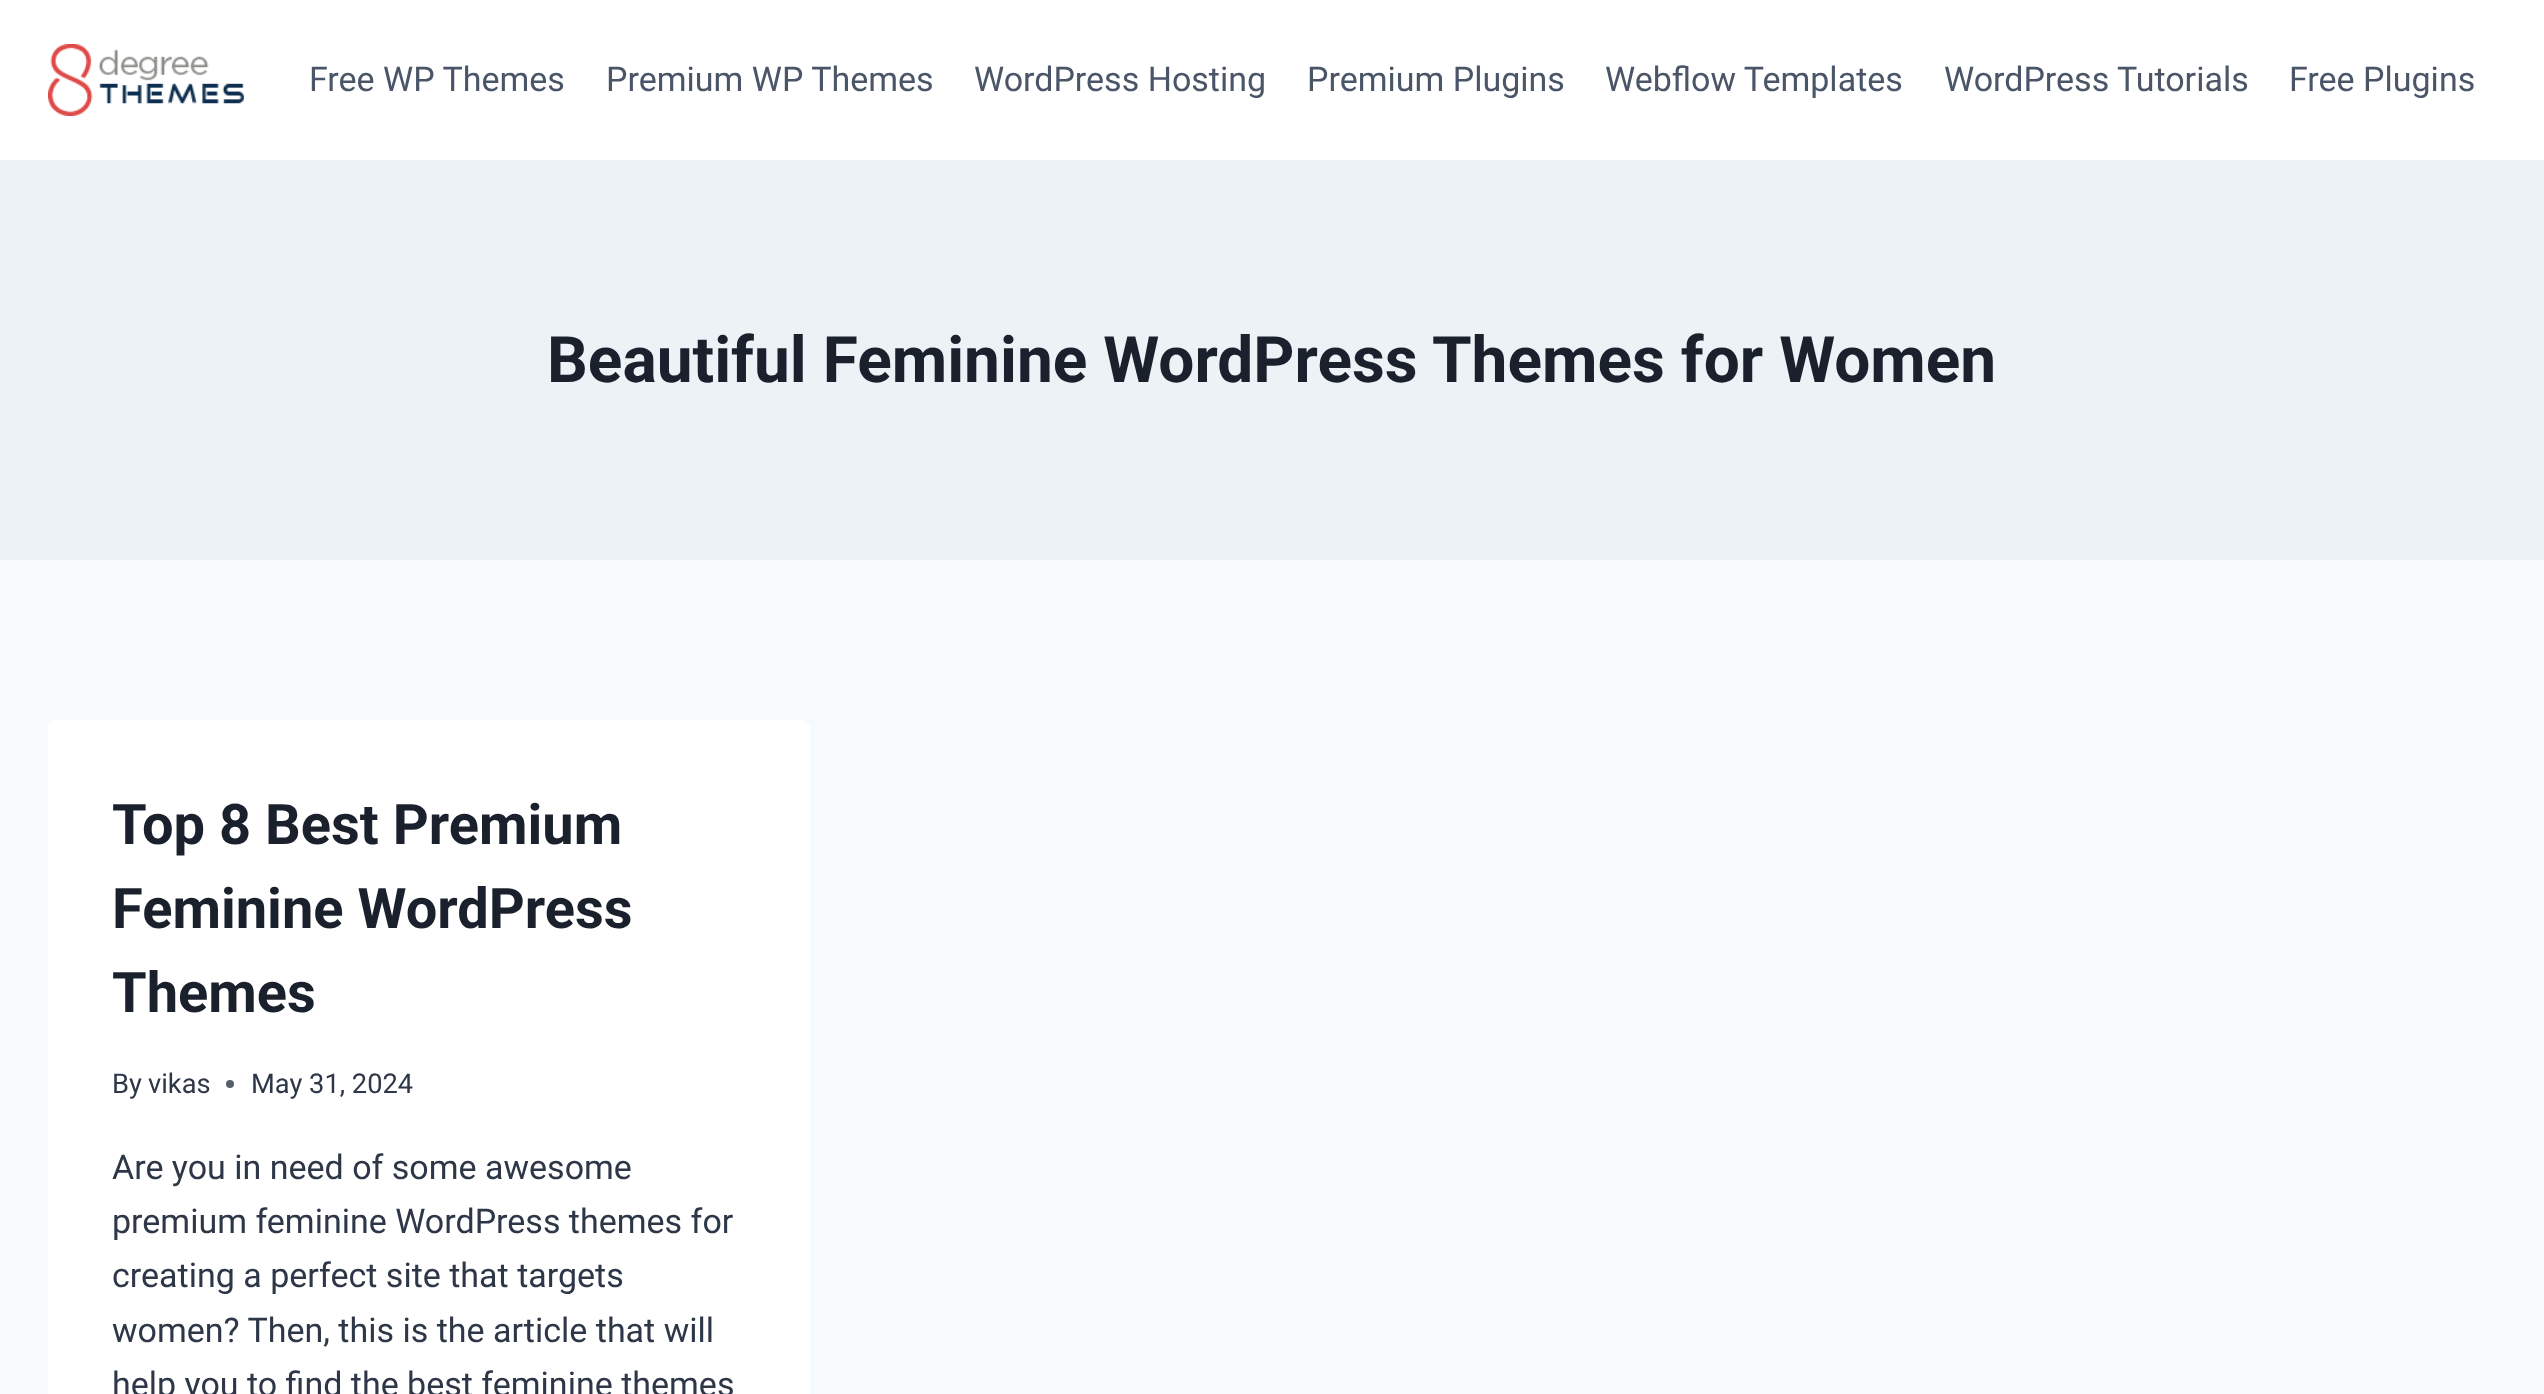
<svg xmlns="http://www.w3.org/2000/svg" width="2544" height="1394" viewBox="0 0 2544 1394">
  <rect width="100%" height="100%" fill="#f7fafc"/>
  <path d="M0 0h2544v160H0z" fill="#fff"/>
  <image x="48" y="44" width="196" height="72" href="img/1.png"/>
  <path d="M0 160h2544v400H0z" fill="#edf2f7"/>
  <rect x="48" y="720" width="762" height="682" rx="8" fill="#fff"/>
  <circle cx="230" cy="1084" r="4" fill="#575f6d"/>
  <g font-family="Roboto" font-size="34" fill="#4a5568">
    <text x="309" y="91">Free WP Themes</text>
    <text x="606" y="91">Premium WP Themes</text>
    <text x="974" y="91">WordPress Hosting</text>
    <text x="1307" y="91">Premium Plugins</text>
    <text x="1605" y="91">Webflow Templates</text>
    <text x="1944" y="91">WordPress Tutorials</text>
    <text x="2289" y="91">Free Plugins</text>
  </g>
  <text x="547" y="382" font-family="Roboto" font-size="64" font-weight="bold" fill="#1a202c">Beautiful Feminine WordPress Themes for Women</text>
  <g font-family="Roboto" font-size="56" font-weight="bold" fill="#1a202c">
    <text x="112" y="844">Top 8 Best Premium</text>
    <text x="112" y="928">Feminine WordPress</text>
    <text x="112" y="1012">Themes</text>
  </g>
  <g font-family="Roboto" font-size="27.25" fill="#2d3748">
    <text x="112" y="1093">By</text>
    <text x="148" y="1093">vikas</text>
    <text x="251" y="1093">May 31, 2024</text>
  </g>
  <g font-family="Roboto" font-size="34" fill="#2d3748">
    <text x="112" y="1179">Are you in need of some awesome</text>
    <text x="112" y="1233">premium feminine WordPress themes for</text>
    <text x="112" y="1287">creating a perfect site that targets</text>
    <text x="112" y="1342">women? Then, this is the article that will</text>
    <text x="112" y="1396">help you to find the best feminine themes</text>
  </g>
</svg>
